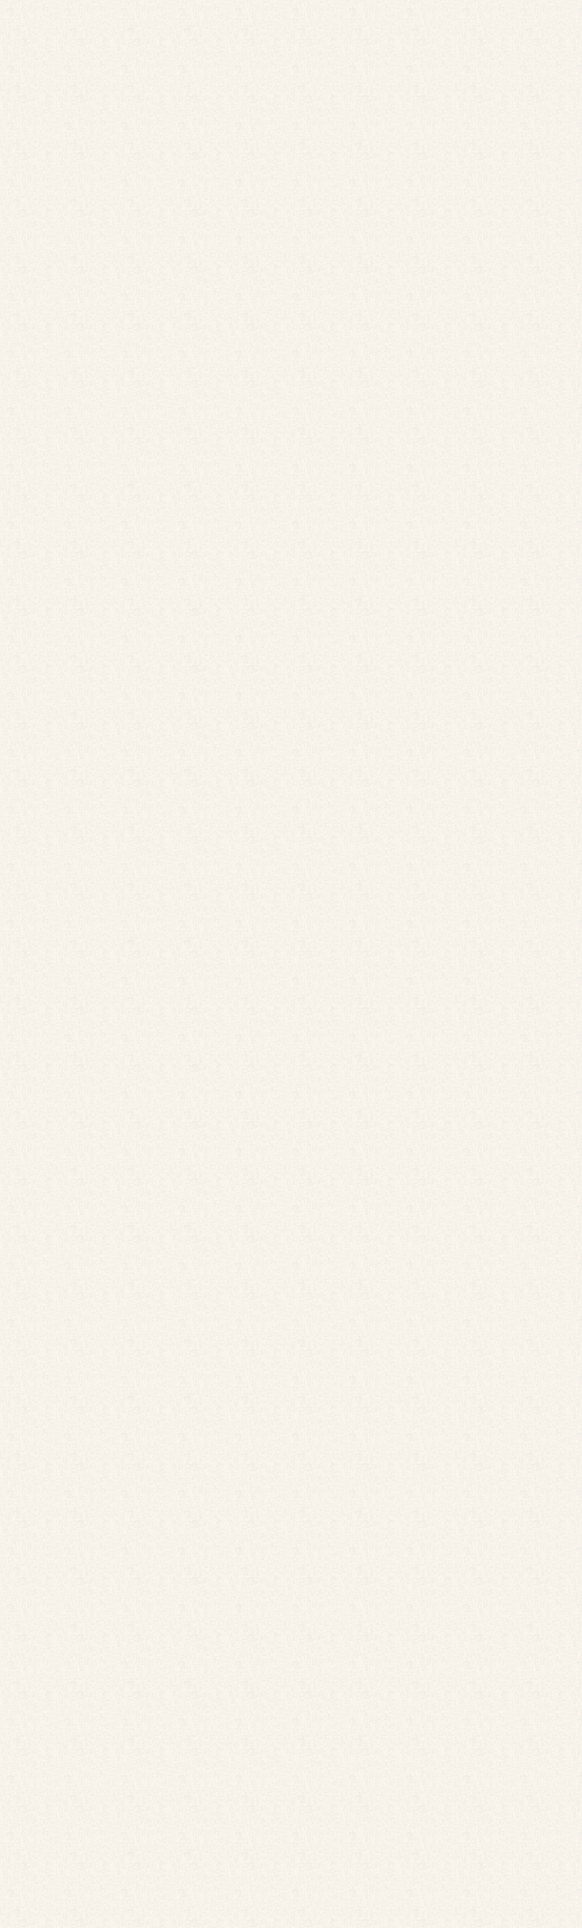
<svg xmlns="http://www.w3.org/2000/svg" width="582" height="1928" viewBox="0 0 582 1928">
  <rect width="100%" height="100%" fill="#fff"/>
  <image x="0" y="0" width="582" height="1928" href="img/1.png"/>
</svg>
